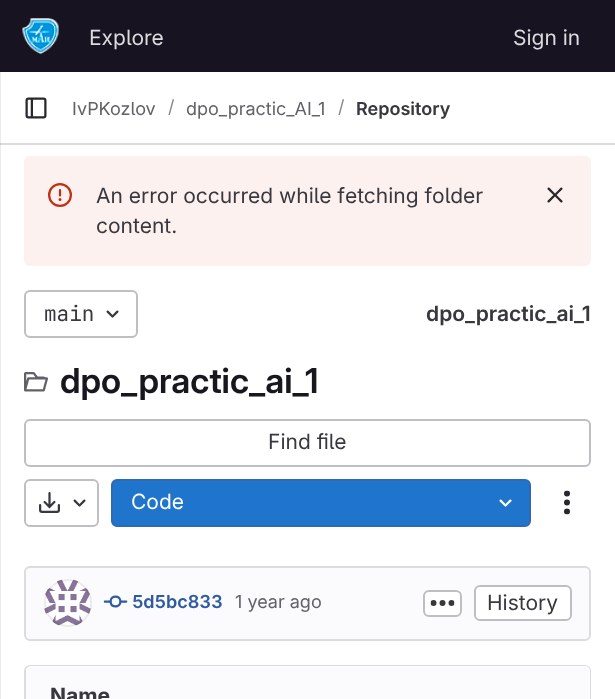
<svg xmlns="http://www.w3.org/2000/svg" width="615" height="699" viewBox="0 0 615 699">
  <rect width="100%" height="100%" fill="#fff"/>
  <path d="M0 72h1v627H0z" fill="#ebebeb"/>
  <path d="M0 0h615v72H0z" fill="#171321"/>
  <image x="22" y="18" width="37" height="36" href="img/1.png"/>
  <path d="M0 143h615v2H0z" fill="#dcdcde"/>
  <path d="M0 143h1v2H0z" fill="#cbcbcd"/>
  <image x="25" y="97" width="22" height="22" href="img/2.png"/>
  <rect x="24" y="156" width="567" height="110" rx="6" fill="#fcf1ef"/>
  <image x="48" y="183" width="24" height="24" href="img/3.png"/>
  <image x="547" y="187" width="16" height="16" href="img/4.png"/>
  <rect x="25" y="291" width="112" height="46" rx="5" fill="none" stroke="#bfbfc3" stroke-width="2"/>
  <image x="106" y="310" width="13" height="8" href="img/5.png"/>
  <image x="24" y="372" width="24" height="20" href="img/6.png"/>
  <rect x="25" y="420" width="565" height="46" rx="5" fill="none" stroke="#bfbfc3" stroke-width="2"/>
  <rect x="25" y="480" width="73" height="46" rx="5" fill="none" stroke="#bfbfc3" stroke-width="2"/>
  <image x="39" y="492" width="21" height="21" href="img/7.png"/>
  <image x="73" y="499" width="13" height="8" href="img/5.png"/>
  <rect x="112" y="480" width="418" height="46" rx="5" fill="#1f75cb" stroke="#2f68b4" stroke-width="2"/>
  <image x="499" y="499" width="13" height="8" href="img/8.png"/>
  <image x="564" y="490" width="6" height="25" href="img/9.png"/>
  <rect x="25" y="567" width="565" height="73" rx="5" fill="#fbfafd" stroke="#dcdcde" stroke-width="2"/>
  <image x="44" y="579" width="47" height="48" href="img/10.png"/>
  <circle cx="68" cy="603" r="23" fill="none" stroke="#05050614" stroke-width="2"/>
  <image x="103" y="595" width="25" height="13" href="img/11.png"/>
  <rect x="424" y="591" width="37" height="25" rx="5" fill="#fff" stroke="#bfbfc3" stroke-width="2"/>
  <image x="430" y="600" width="25" height="6" href="img/12.png"/>
  <rect x="475" y="586" width="96" height="34" rx="5" fill="#fff" stroke="#bfbfc3" stroke-width="2"/>
  <rect x="25" y="666" width="565" height="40" rx="5" fill="none" stroke="#dcdcde" stroke-width="2"/>
  <path d="M31 666H308V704H26V671C26 668 28 666 31 666Z" fill="#fbfafd"/>
  <path d="M308 666H585C588 666 590 668 590 671V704H308Z" fill="#fbfafd"/>
  <g font-family="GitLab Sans" font-size="21" fill="#dcdcde">
    <text x="89" y="45">Explore</text>
    <text x="513" y="45">Sign in</text>
  </g>
  <text x="72" y="115" font-family="GitLab Sans" font-size="18" fill="#626168">IvPKozlov</text>
  <text x="168" y="113" font-family="GitLab Sans" font-size="18" fill="#89888d">/</text>
  <text x="186" y="115" font-family="GitLab Sans" font-size="18" fill="#626168">dpo_practic_AI_1</text>
  <text x="338" y="113" font-family="GitLab Sans" font-size="18" fill="#89888d">/</text>
  <text x="356" y="115" font-family="'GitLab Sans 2'" font-size="18" font-weight="600" fill="#3a383f">Repository</text>
  <g font-family="GitLab Sans" font-size="21" fill="#3a383f">
    <text x="96" y="203">An error occurred while fetching folder</text>
    <text x="96" y="233">content.</text>
  </g>
  <text x="44" y="321" font-family="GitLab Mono" font-size="21" fill="#3a383f">main</text>
  <text x="426" y="321" font-family="'GitLab Sans 2'" font-size="21" font-weight="600" fill="#3a383f">dpo_practic_ai_1</text>
  <text x="60" y="393" font-family="GitLab Sans" font-size="34.5" font-weight="600" fill="#18171d">dpo_practic_ai_1</text>
  <text x="268" y="449" font-family="GitLab Sans" font-size="21" fill="#3a383f">Find file</text>
  <text x="131" y="509" font-family="GitLab Sans" font-size="21" fill="#fff">Code</text>
  <text x="132" y="608" font-family="'GitLab Sans 2'" font-size="18" font-weight="600" fill="#2f5ca0">5d5bc833</text>
  <text x="235" y="608" font-family="GitLab Sans" font-size="18" fill="#626168">1 year ago</text>
  <text x="487" y="610" font-family="GitLab Sans" font-size="21" fill="#3a383f">History</text>
  <text x="50" y="703" font-family="GitLab Sans" font-size="21" font-weight="bold" fill="#3a383f">Name</text>
</svg>
